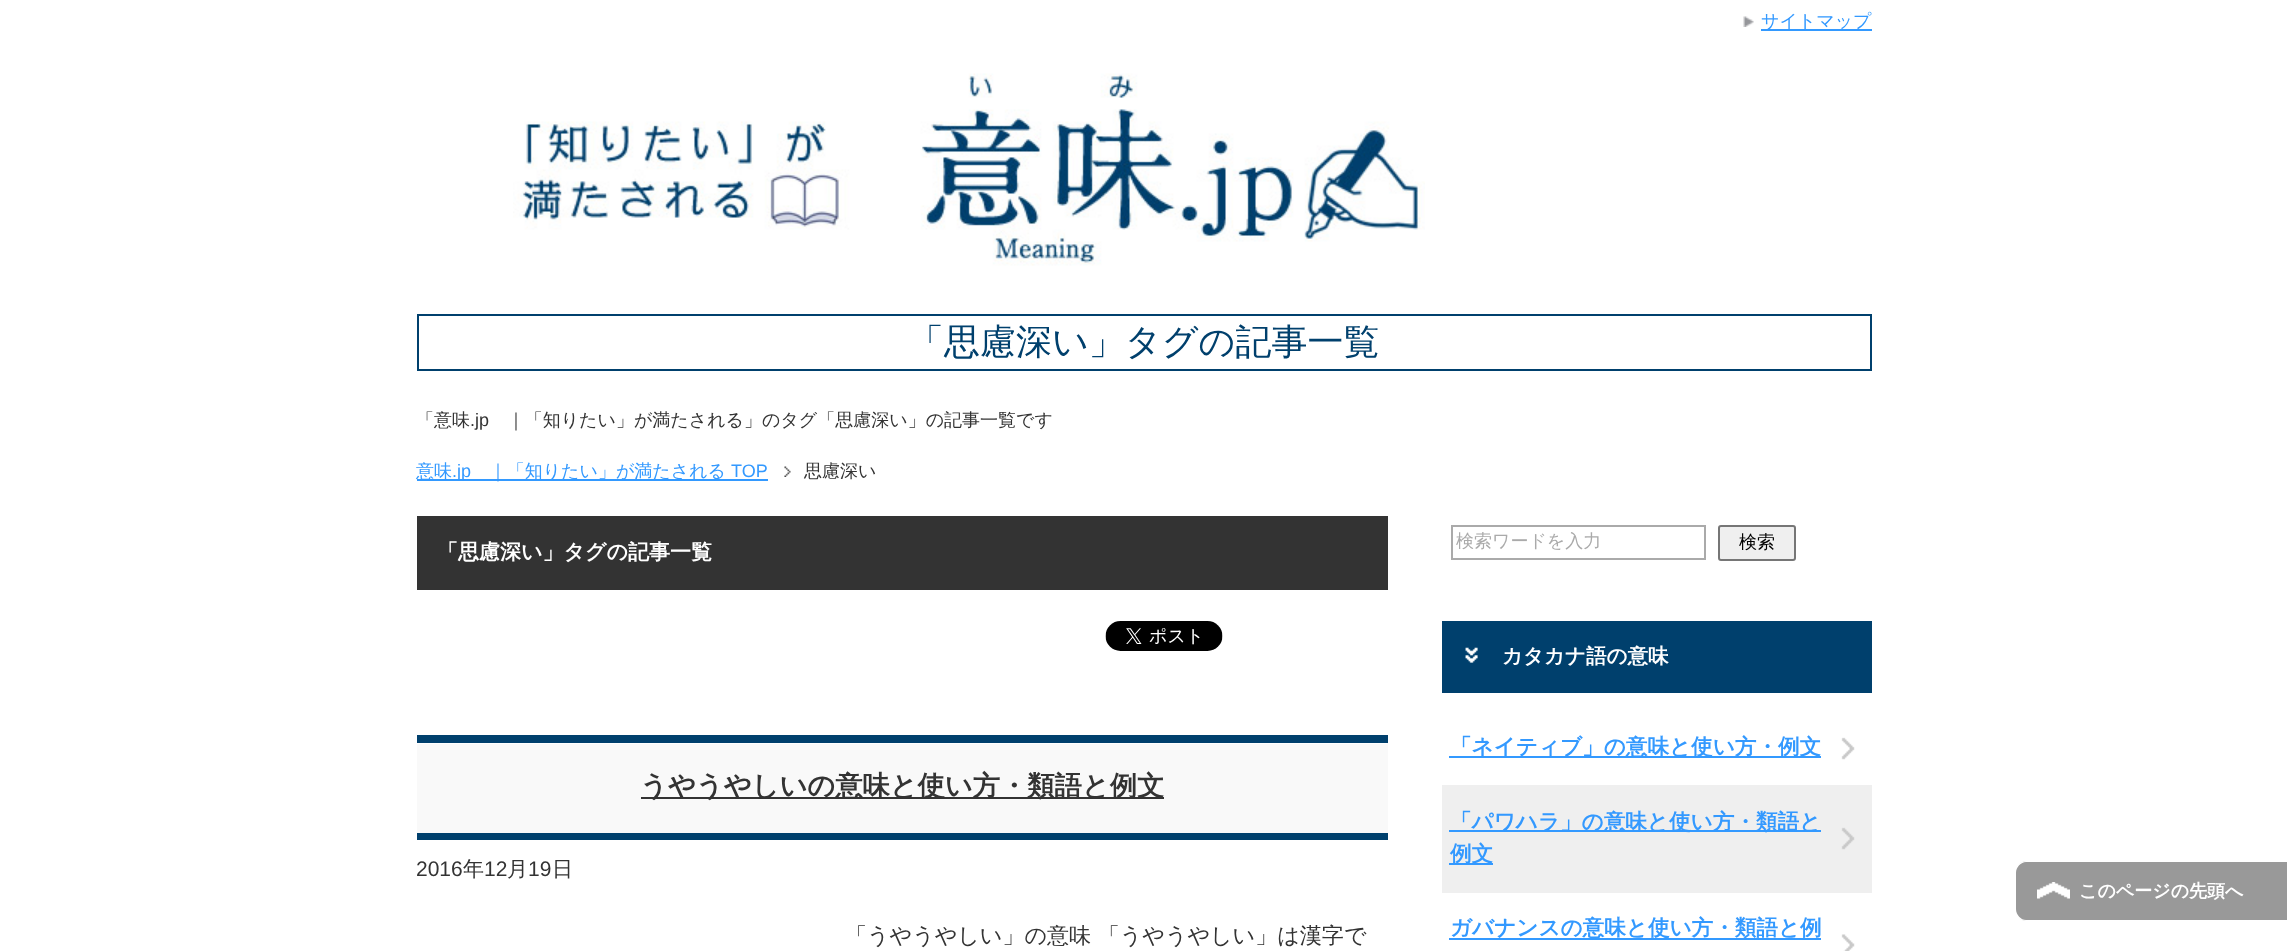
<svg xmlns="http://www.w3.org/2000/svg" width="2287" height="951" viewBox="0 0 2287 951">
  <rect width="100%" height="100%" fill="#fff"/>
  <image x="1743" y="16" width="11" height="11" href="img/1.png"/>
  <path d="M1761 29h111v2H1761z" fill="#39f"/>
  <image x="513" y="73" width="912" height="193" href="img/2.png"/>
  <path d="M418 315h1453v55H418z" fill="none" stroke="#00406d" stroke-width="2"/>
  <path d="M417 479h351v2H417z" fill="#39f"/>
  <image x="784" y="466" width="7" height="11" href="img/3.png"/>
  <path d="M417 516h971v74H417z" fill="#333"/>
  <image x="1105" y="621" width="118" height="30" href="img/4.png"/>
  <path d="M417 743h971v90H417z" fill="#f9f9f9"/>
  <path d="M417 743h970v1H417z" fill="#fff"/>
  <path d="M417 735h971v8H417z" fill="#00406d"/>
  <path d="M417 833h971v7H417z" fill="#00406d"/>
  <path d="M641 797h523v2H641z" fill="#333"/>
  <path d="M1452 526h253v33H1452z" fill="none" stroke="#aaa" stroke-width="2"/>
  <rect x="1719" y="526" width="76" height="34" rx="2" fill="#efefef" stroke="#767676" stroke-width="2"/>
  <path d="M1442 621h430v72H1442z" fill="#00406d"/>
  <image x="1465" y="647" width="13" height="16" href="img/5.png"/>
  <image x="1841" y="737" width="14" height="23" href="img/6.png"/>
  <path d="M1449 756h372v2H1449z" fill="#39f"/>
  <path d="M1442 785h430v108H1442z" fill="#efefef"/>
  <image x="1841" y="827" width="14" height="23" href="img/7.png"/>
  <path d="M1449 830h372v2H1449z" fill="#39f"/>
  <path d="M1449 863h44v2H1449z" fill="#39f"/>
  <image x="1841" y="934" width="14" height="17" href="img/8.png"/>
  <path d="M1449 938h372v2H1449z" fill="#39f"/>
  <path d="M2027 861H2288V921H2027C2020.5 921 2015 915.5 2015 909V873C2015 866.5 2020.5 861 2027 861Z" fill="#999"/>
  <image x="2037" y="882" width="33" height="17" href="img/9.png"/>
  <path d="M2026 861H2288V921H2026C2020 921 2014 916 2014 909V873C2014 866 2020 861 2026 861ZM2026 862H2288V920H2026C2021 920 2016 915 2016 909V873C2016 867 2021 862 2026 862Z" fill="#fff" fill-rule="evenodd"/>
  <text x="1761" y="27" font-family="WenQuanYi Zen Hei" font-size="18" font-weight="500" fill="#39f">サイトマップ</text>
  <text x="908" y="354" font-family="WenQuanYi Zen Hei" font-size="36" font-weight="500" fill="#00406d">「思慮深い」タグの記事一覧</text>
  <text x="416" y="426" font-family="WenQuanYi Zen Hei" font-size="18" font-weight="500" fill="#333">「意味</text>
  <text x="470" y="426" font-family="Liberation Sans" font-size="18" fill="#333">.jp</text>
  <text x="507" y="426" font-family="WenQuanYi Zen Hei" font-size="18" font-weight="500" fill="#333">｜「知りたい」が満たされる」のタグ「思慮深い」の記事一覧です</text>
  <text x="416" y="477" font-family="WenQuanYi Zen Hei" font-size="18" font-weight="500" fill="#39f">意味</text>
  <text x="452" y="477" font-family="Liberation Sans" font-size="18" fill="#39f">.jp</text>
  <text x="489" y="477" font-family="WenQuanYi Zen Hei" font-size="18" font-weight="500" fill="#39f">｜「知りたい」が満たされる</text>
  <text x="731" y="477" font-family="Liberation Sans" font-size="18" fill="#39f">TOP</text>
  <text x="804" y="477" font-family="WenQuanYi Zen Hei" font-size="18" font-weight="500" fill="#333">思慮深い</text>
  <text x="437" y="559" font-family="WenQuanYi Zen Hei" font-size="21" font-weight="bold" fill="#fff">「思慮深い」タグの記事一覧</text>
  <text x="640" y="795" font-family="WenQuanYi Zen Hei" font-size="27.25" font-weight="bold" fill="#333">うやうやしいの意味と使い方・類語と例文</text>
  <text x="416" y="876" font-family="Liberation Sans" font-size="21" fill="#333">2016</text>
  <text x="463" y="876" font-family="WenQuanYi Zen Hei" font-size="21" font-weight="500" fill="#333">年</text>
  <text x="484" y="876" font-family="Liberation Sans" font-size="21" fill="#333">12</text>
  <text x="507" y="876" font-family="WenQuanYi Zen Hei" font-size="21" font-weight="500" fill="#333">月</text>
  <text x="528" y="876" font-family="Liberation Sans" font-size="21" fill="#333">19</text>
  <text x="552" y="876" font-family="WenQuanYi Zen Hei" font-size="21" font-weight="500" fill="#333">日</text>
  <text x="845" y="943" font-family="WenQuanYi Zen Hei" font-size="22.05" font-weight="500" fill="#333">「うやうやしい」の意味 「うやうやしい」は漢字で</text>
  <text x="1456" y="547" font-family="WenQuanYi Zen Hei" font-size="18" font-weight="500" fill="#aaa">検索ワードを入力</text>
  <text x="1739" y="548" font-family="WenQuanYi Zen Hei" font-size="18" font-weight="500" fill="#000">検索</text>
  <text x="1502" y="663" font-family="WenQuanYi Zen Hei" font-size="20.5" font-weight="bold" fill="#fff">カタカナ語の意味</text>
  <g font-family="WenQuanYi Zen Hei" font-size="21.6" font-weight="bold" fill="#39f">
    <text x="1450" y="754">「ネイティブ」の意味と使い方・例文</text>
    <text x="1450" y="829">「パワハラ」の意味と使い方・類語と</text>
    <text x="1450" y="861">例文</text>
    <text x="1450" y="935">ガバナンスの意味と使い方・類語と例</text>
  </g>
  <text x="2079" y="897" font-family="WenQuanYi Zen Hei" font-size="18" font-weight="bold" fill="#fff">このページの先頭へ</text>
</svg>
